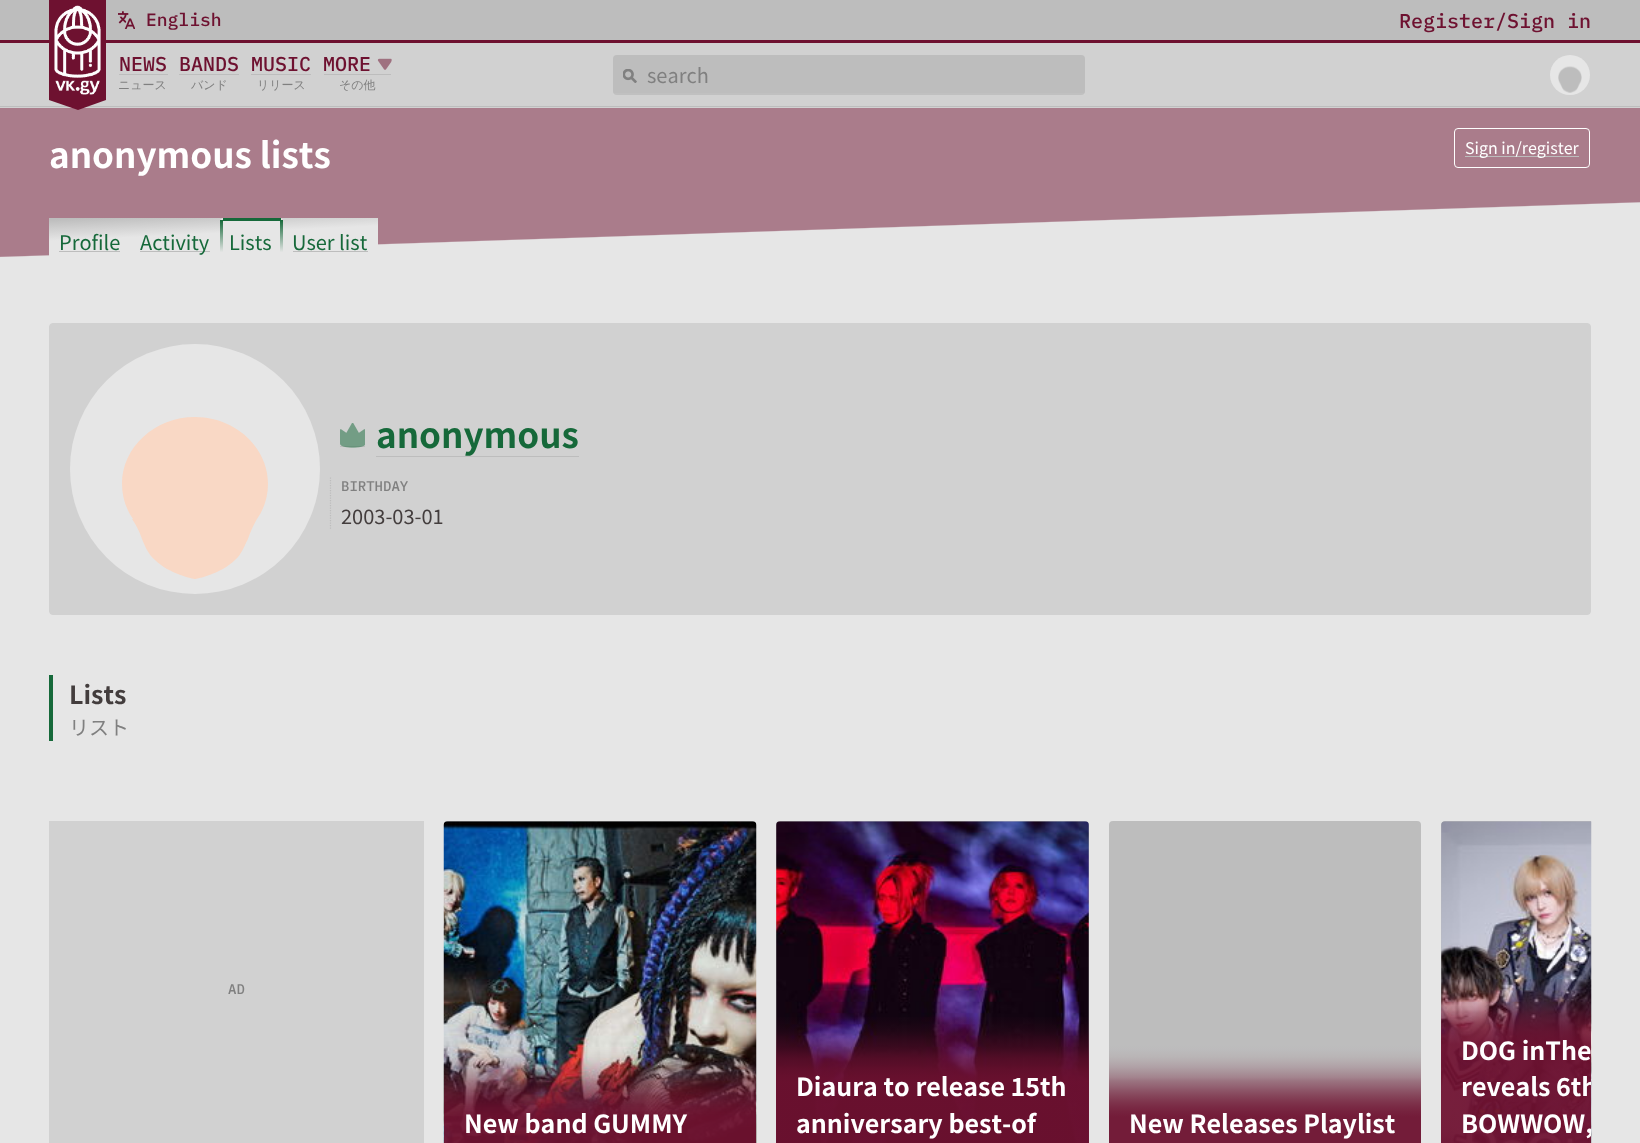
<svg xmlns="http://www.w3.org/2000/svg" width="1640" height="1143" viewBox="0 0 1640 1143">
  <style>*{font-kerning:none!important;font-variant-ligatures:none!important}</style>
  <defs>
    <linearGradient id="g1" gradientUnits="userSpaceOnUse" x1="818" y1="169" x2="822" y2="289"><stop offset="0.5" stop-color="#e6e6e6" stop-opacity="0"/><stop offset="0.51" stop-color="#e6e6e6"/></linearGradient>
    <linearGradient id="g2" gradientUnits="userSpaceOnUse" x1="212" y1="212" x2="214" y2="255"><stop offset="0" stop-color="#bdbdbd"/><stop offset="0.5" stop-color="#e6e6e6"/></linearGradient>
    <linearGradient id="g3" gradientUnits="userSpaceOnUse" x1="281" y1="220" x2="281" y2="263"><stop offset="0" stop-color="#16693a"/><stop offset="0.75" stop-color="#16693a" stop-opacity="0"/></linearGradient>
    <linearGradient id="g4" gradientUnits="userSpaceOnUse" x1="221" y1="220" x2="221" y2="263"><stop offset="0" stop-color="#16693a"/><stop offset="0.75" stop-color="#16693a" stop-opacity="0"/></linearGradient>
    <linearGradient id="g5" gradientUnits="userSpaceOnUse" x1="933" y1="988" x2="933" y2="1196"><stop offset="0.1" stop-color="#6e1130" stop-opacity="0"/><stop offset="0.13" stop-color="#6e1130" stop-opacity="0.01"/><stop offset="0.16" stop-color="#6e1130" stop-opacity="0.05"/><stop offset="0.18" stop-color="#6e1130" stop-opacity="0.1"/><stop offset="0.21" stop-color="#6e1130" stop-opacity="0.17"/><stop offset="0.23" stop-color="#6e1130" stop-opacity="0.25"/><stop offset="0.25" stop-color="#6e1130" stop-opacity="0.33"/><stop offset="0.28" stop-color="#6e1130" stop-opacity="0.43"/><stop offset="0.3" stop-color="#6e1130" stop-opacity="0.52"/><stop offset="0.32" stop-color="#6e1130" stop-opacity="0.62"/><stop offset="0.34" stop-color="#6e1130" stop-opacity="0.71"/><stop offset="0.37" stop-color="#6e1130" stop-opacity="0.78"/><stop offset="0.39" stop-color="#6e1130" stop-opacity="0.85"/><stop offset="0.42" stop-color="#6e1130" stop-opacity="0.9"/><stop offset="0.45" stop-color="#6e1130" stop-opacity="0.94"/></linearGradient>
    <linearGradient id="g6" gradientUnits="userSpaceOnUse" x1="1265" y1="1024" x2="1265" y2="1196"><stop offset="0.12" stop-color="#bdbdbd"/><stop offset="0.15" stop-color="#bcbbbc"/><stop offset="0.19" stop-color="#b9b5b6"/><stop offset="0.22" stop-color="#b5acaf"/><stop offset="0.25" stop-color="#b0a1a6"/><stop offset="0.28" stop-color="#a9939a"/><stop offset="0.31" stop-color="#a3848e"/><stop offset="0.33" stop-color="#9b7481"/><stop offset="0.36" stop-color="#946474"/><stop offset="0.39" stop-color="#8c5366"/><stop offset="0.42" stop-color="#854459"/><stop offset="0.45" stop-color="#7f364e"/><stop offset="0.48" stop-color="#7a2b45"/><stop offset="0.51" stop-color="#76223e"/><stop offset="0.54" stop-color="#731c39"/></linearGradient>
    <linearGradient id="g7" gradientUnits="userSpaceOnUse" x1="1598" y1="951" x2="1598" y2="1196"><stop offset="0.08" stop-color="#6e1130" stop-opacity="0"/><stop offset="0.11" stop-color="#6e1130" stop-opacity="0.01"/><stop offset="0.13" stop-color="#6e1130" stop-opacity="0.05"/><stop offset="0.16" stop-color="#6e1130" stop-opacity="0.1"/><stop offset="0.18" stop-color="#6e1130" stop-opacity="0.17"/><stop offset="0.2" stop-color="#6e1130" stop-opacity="0.25"/><stop offset="0.22" stop-color="#6e1130" stop-opacity="0.33"/><stop offset="0.24" stop-color="#6e1130" stop-opacity="0.43"/><stop offset="0.25" stop-color="#6e1130" stop-opacity="0.52"/><stop offset="0.27" stop-color="#6e1130" stop-opacity="0.62"/><stop offset="0.29" stop-color="#6e1130" stop-opacity="0.71"/><stop offset="0.31" stop-color="#6e1130" stop-opacity="0.78"/><stop offset="0.33" stop-color="#6e1130" stop-opacity="0.85"/><stop offset="0.36" stop-color="#6e1130" stop-opacity="0.9"/><stop offset="0.38" stop-color="#6e1130" stop-opacity="0.94"/></linearGradient>
    <clipPath id="clip1"><path d="M49 821h1542v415H49z"/></clipPath>
  </defs>
  <rect width="100%" height="100%" fill="#e6e6e6"/>
  <path d="M0 0h1640v40H0z" fill="#bdbdbd"/>
  <path d="M0 43h1640v65H0z" fill="#d1d1d1"/>
  <path d="M0 40h1640v3H0z" fill="#6e1130"/>
  <path d="M49 0h57v100H49z" fill="#6e1130"/>
  <image x="54" y="5" width="47" height="90" href="img/1.png"/>
  <path d="M0 106h1640v1H0z" fill="#bdbdbd"/>
  <path d="M0 108h1640v150H0z" fill="#aa7c8b"/>
  <path d="M49 100H106L78 110Z" fill="#6e1130"/>
  <image x="118" y="11" width="17" height="18" href="img/2.png"/>
  <path d="M119 74h49v1H119z" fill="#bdbdbd"/>
  <path d="M179 74h60v1H179z" fill="#bdbdbd"/>
  <path d="M251 74h60v1H251z" fill="#bdbdbd"/>
  <path d="M324 74h67v1H324z" fill="#bdbdbd"/>
  <image x="377" y="58" width="15" height="12" href="img/3.png"/>
  <rect x="613" y="55" width="472" height="40" rx="4" fill="#bdbdbd"/>
  <image x="623" y="69" width="14" height="14" href="img/4.png"/>
  <path d="M613 93h472v2H613z" fill="#ffffff0d"/>
  <circle cx="1570" cy="75" r="20" fill="#e6e6e6"/>
  <image x="1558" y="66" width="24" height="27" href="img/5.png"/>
  <rect x="1454.5" y="128.5" width="135" height="39" rx="3.5" fill="none" stroke="#fff"/>
  <path d="M1465 156h114v1H1465z" fill="#bdbdbd"/>
  <path d="M0 202h1640v56H0z" fill="url(#g1)"/>
  <path d="M49 249h191v7H49z" fill="#e6e6e6"/>
  <path d="M49 218h329v31H49z" fill="url(#g2)"/>
  <path d="M59 251h61v1H59z" fill="#bdbdbd"/>
  <path d="M140 251h70v1H140z" fill="#bdbdbd"/>
  <rect x="220" y="218" width="63" height="45" rx="4" fill="#e6e6e6"/>
  <path d="M280 220h3v32H280z" fill="url(#g3)"/>
  <path d="M220 220h3v32H220z" fill="url(#g4)"/>
  <path d="M223 218h58v3H223z" fill="#16693a"/>
  <path d="M293 251h75v1H293z" fill="#bdbdbd"/>
  <rect x="49.5" y="323.5" width="1541" height="291" rx="3.5" fill="#d1d1d1" stroke="#d1d1d1"/>
  <circle cx="195" cy="469" r="125" fill="#e6e6e6"/>
  <path d="M268 484C268 447 235 417 195 417C155 417 122 447 122 484C122 497 126 509 133 519H132C132 519 138 527 142 539C145 546 148 554 155 560C169 574 194 579 195 579C196 579 221 574 235 560C242 554 244 546 248 539C252 527 257 519 257 519C264 509 268 497 268 484Z" fill="#f9d8c5"/>
  <path d="M340 446h25v1H340z" fill="#bdbdbd"/>
  <path d="M376 456h203v1H376z" fill="#bdbdbd"/>
  <image x="340" y="423" width="25" height="25" href="img/6.png"/>
  <path d="M330.5 477.5V530" fill="none" stroke="#bdbdbd" stroke-width="1.2" stroke-dasharray="1.25 1.25"/>
  <path d="M49 675h4v66H49z" fill="#16693a"/>
  <path d="M49 821h375v322H49z" fill="#d1d1d1"/>
  <rect x="444" y="821" width="312" height="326" rx="4" fill="#bdbdbd"/>
  <image x="443" y="821" width="314" height="322" href="img/7.png"/>
  <rect x="776" y="821" width="313" height="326" rx="4" fill="#bdbdbd"/>
  <image x="776" y="821" width="313" height="322" href="img/8.png"/>
  <path d="M776 1017h313v126H776z" fill="url(#g5)"/>
  <rect x="1109" y="821" width="312" height="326" rx="4" fill="#bdbdbd"/>
  <rect x="1109" y="1024" width="312" height="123" rx="4" fill="url(#g6)"/>
  <path d="M1445 821H1591V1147H1445C1443 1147 1441 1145 1441 1143V825C1441 823 1443 821 1445 821Z" fill="#bdbdbd"/>
  <image x="1441" y="821" width="151" height="322" href="img/9.png"/>
  <path d="M1441 979h150v164H1441z" fill="url(#g7)"/>
  <text x="146" y="26" font-family="IBM Plex Mono" font-size="18" font-weight="500" fill="#6e1130">English</text>
  <g font-family="IBM Plex Mono" font-size="20" font-weight="500" fill="#6e1130">
    <text x="1399" y="28">Register/Sign in</text>
    <text x="119" y="71">NEWS</text>
  </g>
  <text x="118" y="89" font-family="WenQuanYi Zen Hei" font-size="12" font-weight="500" fill="#808080">ニュース</text>
  <text x="179" y="71" font-family="IBM Plex Mono" font-size="20" font-weight="500" fill="#6e1130">BANDS MUSIC MORE</text>
  <g font-family="WenQuanYi Zen Hei" font-size="12" font-weight="500" fill="#808080">
    <text x="191" y="89">バンド</text>
    <text x="257" y="89">リリース</text>
    <text x="339" y="89">その他</text>
  </g>
  <text x="647" y="83" font-family="Noto Sans JP" font-size="20" fill="#808080">search</text>
  <text x="49" y="168" font-family="Noto Sans JP" font-size="35" font-weight="bold" fill="#fff">anonymous lists</text>
  <text x="1465" y="154" font-family="Noto Sans JP" font-size="16" fill="#fff">Sign in/register</text>
  <g font-family="Noto Sans JP" font-size="20" fill="#16693a">
    <text x="59" y="250">Profile</text>
    <text x="140" y="250">Activity</text>
    <text x="229" y="250">Lists</text>
    <text x="292" y="250">User list</text>
  </g>
  <text x="376" y="448" font-family="Noto Sans JP" font-size="35" font-weight="bold" fill="#16693a">anonymous</text>
  <text x="341" y="491" font-family="IBM Plex Mono" font-size="14" font-weight="500" fill="#808080">BIRTHDAY</text>
  <text x="341" y="524" font-family="Noto Sans JP" font-size="20" fill="#433d3d">2003-03-01</text>
  <text x="69" y="704" font-family="Noto Sans JP" font-size="25" font-weight="bold" fill="#433d3d">Lists</text>
  <text x="69" y="735" font-family="Noto Sans JP" font-size="20" fill="#808080">リスト</text>
  <text x="228" y="994" font-family="IBM Plex Mono" font-size="14" font-weight="500" fill="#808080">AD</text>
  <g font-family="Noto Sans JP" font-size="25" font-weight="bold" fill="#fff">
    <text x="464" y="1133">New band GUMMY</text>
    <text x="796" y="1096">Diaura to release 15th</text>
    <text x="796" y="1133">anniversary best-of</text>
    <text x="1129" y="1133">New Releases Playlist</text>
    <text x="1461" y="1060">DOG inThe</text>
  </g>
  <g clip-path="url(#clip1)">
    <g font-family="Noto Sans JP" font-size="25" font-weight="bold" fill="#fff">
      <text x="1461" y="1096">reveals 6th</text>
      <text x="1461" y="1133">BOWWOW,</text>
    </g>
  </g>
</svg>
